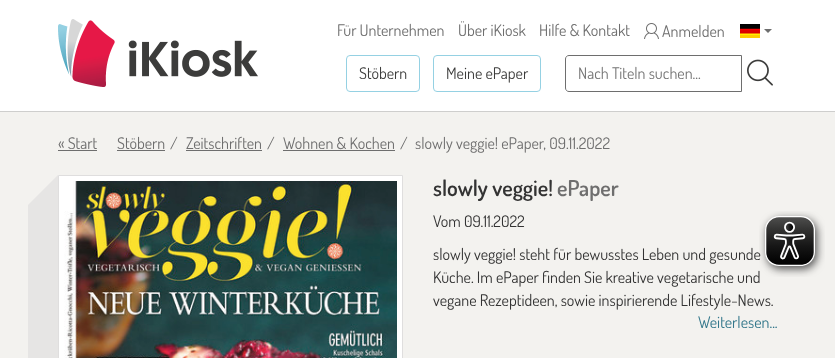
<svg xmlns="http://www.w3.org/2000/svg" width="835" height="358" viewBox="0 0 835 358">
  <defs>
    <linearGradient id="g1" gradientUnits="userSpaceOnUse" x1="27" y1="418" x2="58" y2="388"><stop offset="0" stop-color="#f3f2ef"/><stop offset="1" stop-color="#e6e5e4"/></linearGradient>
  </defs>
  <rect width="100%" height="100%" fill="#f3f2ef"/>
  <path d="M0 0h835v111H0z" fill="#fff"/>
  <path d="M0 111h835v1H0z" fill="#cececd"/>
  <image x="58" y="19" width="200" height="68" href="img/1.png"/>
  <image x="644" y="23" width="15" height="16" href="img/2.png"/>
  <image x="740" y="24" width="20" height="14" href="img/3.png"/>
  <path d="M764 29H772L768 33Z" fill="#6e6e6e"/>
  <rect x="346.5" y="55.5" width="73" height="36" rx="3.5" fill="none" stroke="#95d1e3"/>
  <rect x="433.5" y="55.5" width="107" height="36" rx="3.5" fill="none" stroke="#95d1e3"/>
  <path d="M569 55.5H741.5V91.5H569C567 91.5 565.5 90 565.5 88V59C565.5 57 567 55.5 569 55.5Z" fill="none" stroke="#6e6e6e"/>
  <image x="747" y="59" width="26" height="27" href="img/4.png"/>
  <path d="M58 150h39v1H58z" fill="#6e6e6e"/>
  <path d="M117 150h48v1H117z" fill="#6e6e6e"/>
  <path d="M186 150h76v1H186z" fill="#6e6e6e"/>
  <path d="M283 150h112v1H283z" fill="#6e6e6e"/>
  <path d="M28 205L58 175V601L28 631Z" fill="url(#g1)"/>
  <path d="M58.5 175.5h344v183H58.5z" fill="#fff" stroke="#dfdede"/>
  <image x="64" y="181" width="333" height="177" href="img/5.png"/>
  <g font-family="Dosis" font-size="16" fill="#6e6e6e">
    <text x="337" y="36">Für Unternehmen</text>
    <text x="458" y="36">Über iKiosk</text>
    <text x="539" y="36">Hilfe &amp; Kontakt</text>
    <text x="662" y="37">Anmelden</text>
  </g>
  <g font-family="Dosis" font-size="16" fill="#3c3c3b">
    <text x="359" y="79">Stöbern</text>
    <text x="446" y="79">Meine ePaper</text>
  </g>
  <text x="578" y="79" font-family="Dosis" font-size="16" fill="#767676">Nach Titeln suchen...</text>
  <g font-family="Dosis" font-size="16" fill="#6e6e6e">
    <text x="58" y="149">« Start</text>
    <text x="117" y="149">Stöbern</text>
    <text x="170" y="149">/</text>
    <text x="186" y="149">Zeitschriften</text>
    <text x="267" y="149">/</text>
    <text x="283" y="149">Wohnen &amp; Kochen</text>
    <text x="400" y="149">/</text>
    <text x="415" y="149">slowly veggie! ePaper, 09.11.2022</text>
  </g>
  <text x="433" y="196" font-family="Dosis" font-size="22" font-weight="600" fill="#333">slowly veggie!</text>
  <text x="557" y="196" font-family="Dosis" font-size="22" font-weight="600" fill="#6e6e6e">ePaper</text>
  <g font-family="Dosis" font-size="16" fill="#333">
    <text x="433" y="227">Vom 09.11.2022</text>
    <text x="433" y="260">slowly veggie! steht für bewusstes Leben und gesunde</text>
    <text x="433" y="283">Küche. Im ePaper finden Sie kreative vegetarische und</text>
    <text x="433" y="306">vegane Rezeptideen, sowie inspirierende Lifestyle-News.</text>
  </g>
  <text x="698" y="328" font-family="Dosis" font-size="16" fill="#33778b">Weiterlesen...</text>
  <image x="759" y="211" width="66" height="66" href="img/6.png"/>
</svg>
